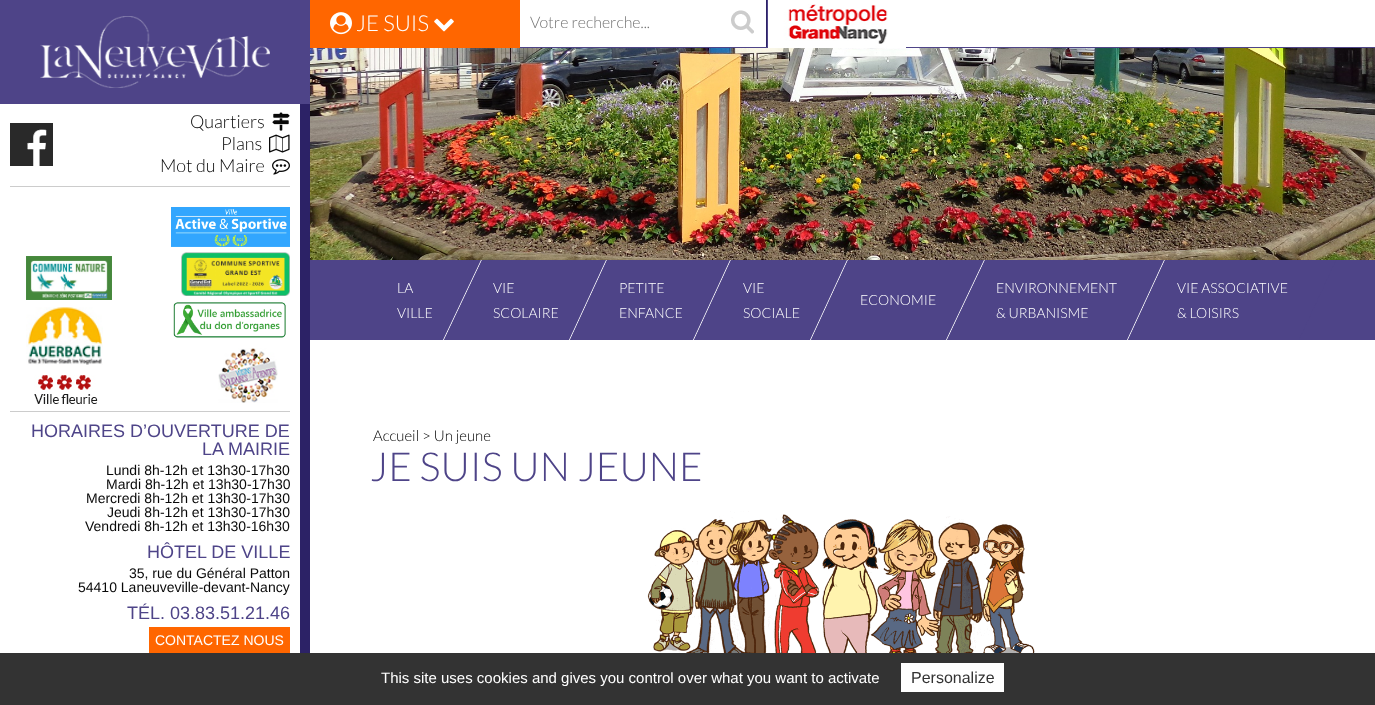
<svg xmlns="http://www.w3.org/2000/svg" width="1375" height="705" viewBox="0 0 1375 705">
  <rect width="100%" height="100%" fill="#fff"/>
  <path d="M520 47h855v1H520z" fill="#4e4488"/>
  <path d="M310 0h210v48H310z" fill="#f60"/>
  <image x="330" y="12" width="22" height="23" href="img/1.png"/>
  <image x="434" y="18" width="20" height="14" href="img/2.png"/>
  <path d="M766 0h1v47H766z" fill="#2c2266"/>
  <image x="731" y="10" width="23" height="24" href="img/3.png"/>
  <image x="768" y="4" width="138" height="44" href="img/4.png"/>
  <path d="M767 0h1v48H767z" fill="#4e4488"/>
  <path d="M300 104h10v549H300z" fill="#2c2266"/>
  <path d="M0 0h310v104H0z" fill="#4e4488"/>
  <image x="40" y="16" width="230" height="72" href="img/5.png"/>
  <path d="M10 186h280v1H10z" fill="#ccc"/>
  <path d="M10 123h43v43H10z" fill="#292929"/>
  <image x="27" y="129" width="20" height="37" href="img/6.png"/>
  <image x="272" y="112" width="18" height="19" href="img/7.png"/>
  <image x="269" y="134" width="21" height="19" href="img/8.png"/>
  <image x="272" y="159" width="18" height="16" href="img/9.png"/>
  <path d="M10 411h280v1H10z" fill="#ccc"/>
  <image x="26" y="256" width="86" height="44" href="img/10.png"/>
  <image x="26" y="307" width="77" height="58" href="img/11.png"/>
  <image x="34" y="375" width="64" height="29" href="img/12.png"/>
  <image x="171" y="207" width="119" height="40" href="img/13.png"/>
  <image x="181" y="252" width="109" height="44" href="img/14.png"/>
  <image x="173" y="302" width="113" height="36" href="img/15.png"/>
  <image x="218" y="348" width="60" height="55" href="img/16.png"/>
  <path d="M149 627h141v26H149z" fill="#f60"/>
  <image x="310" y="48" width="1065" height="212" href="img/17.png"/>
  <path d="M310 260h1065v80H310z" fill="#4e4488"/>
  <path d="M481 260H482L444 340H443Z" fill="#fff"/>
  <path d="M482 260H607L570 340H444Z" fill="#4e4488"/>
  <path d="M606 260H607L570 340H569Z" fill="#fff"/>
  <path d="M607 260H731L694 340H570Z" fill="#4e4488"/>
  <path d="M730 260H731L694 340H693Z" fill="#fff"/>
  <path d="M731 260H848L811 340H694Z" fill="#4e4488"/>
  <path d="M847 260H848L811 340H810Z" fill="#fff"/>
  <path d="M848 260H985L947 340H811Z" fill="#4e4488"/>
  <path d="M984 260H985L947 340H946Z" fill="#fff"/>
  <path d="M985 260H1165L1128 340H947Z" fill="#4e4488"/>
  <path d="M1164 260H1165L1128 340H1127Z" fill="#fff"/>
  <path d="M1165 260H1336L1299 340H1128Z" fill="#4e4488"/>
  <image x="647" y="511" width="388" height="142" href="img/18.png"/>
  <path d="M0 653h1375v52H0z" fill="#333"/>
  <path d="M901 663h103v29H901z" fill="#fff"/>
  <text x="356" y="31" font-family="Lato" font-size="22" font-weight="300" fill="#fff">JE SUIS</text>
  <text x="530" y="28" font-family="Lato" font-size="16" font-weight="300" fill="#757575">Votre recherche...</text>
  <g font-family="Lato" font-size="18" font-weight="300" fill="#080808">
    <text x="190" y="128">Quartiers</text>
    <text x="221" y="150">Plans</text>
    <text x="160" y="172">Mot du Maire</text>
  </g>
  <g font-family="Liberation Sans" font-size="18" fill="#4e4488">
    <text x="31" y="437">HORAIRES D’OUVERTURE DE</text>
    <text x="202" y="455">LA MAIRIE</text>
  </g>
  <g font-family="Liberation Sans" font-size="14" fill="#080808">
    <text x="106" y="475">Lundi 8h-12h et 13h30-17h30</text>
    <text x="106" y="489">Mardi 8h-12h et 13h30-17h30</text>
    <text x="86" y="503">Mercredi 8h-12h et 13h30-17h30</text>
    <text x="107" y="517">Jeudi 8h-12h et 13h30-17h30</text>
    <text x="85" y="531">Vendredi 8h-12h et 13h30-16h30</text>
  </g>
  <text x="147" y="558" font-family="Liberation Sans" font-size="18" fill="#4e4488">HÔTEL DE VILLE</text>
  <g font-family="Liberation Sans" font-size="14" fill="#080808">
    <text x="129" y="578">35, rue du Général Patton</text>
    <text x="78" y="592">54410 Laneuveville-devant-Nancy</text>
  </g>
  <text x="127" y="619" font-family="Liberation Sans" font-size="18" fill="#4e4488">TÉL. 03.83.51.21.46</text>
  <text x="155" y="645" font-family="Liberation Sans" font-size="14" fill="#fff">CONTACTEZ NOUS</text>
  <g font-family="Lato" font-size="14" font-weight="300" fill="#fff">
    <text x="397" y="293">LA</text>
    <text x="397" y="318">VILLE</text>
    <text x="493" y="293">VIE</text>
    <text x="493" y="318">SCOLAIRE</text>
    <text x="619" y="293">PETITE</text>
    <text x="619" y="318">ENFANCE</text>
    <text x="743" y="293">VIE</text>
    <text x="743" y="318">SOCIALE</text>
    <text x="860" y="305">ECONOMIE</text>
    <text x="996" y="293">ENVIRONNEMENT</text>
    <text x="996" y="318">&amp; URBANISME</text>
    <text x="1177" y="293">VIE ASSOCIATIVE</text>
    <text x="1177" y="318">&amp; LOISIRS</text>
  </g>
  <text x="373" y="441" font-family="Lato" font-size="15" font-weight="300" fill="#000">Accueil &gt; Un jeune</text>
  <text x="370" y="481" font-family="Lato" font-size="40" font-weight="300" fill="#4e4488">JE SUIS UN JEUNE</text>
  <text x="381" y="683" font-family="Liberation Sans" font-size="15" fill="#fff">This site uses cookies and gives you control over what you want to activate</text>
  <text x="911" y="683" font-family="Liberation Sans" font-size="16" fill="#333">Personalize</text>
</svg>
